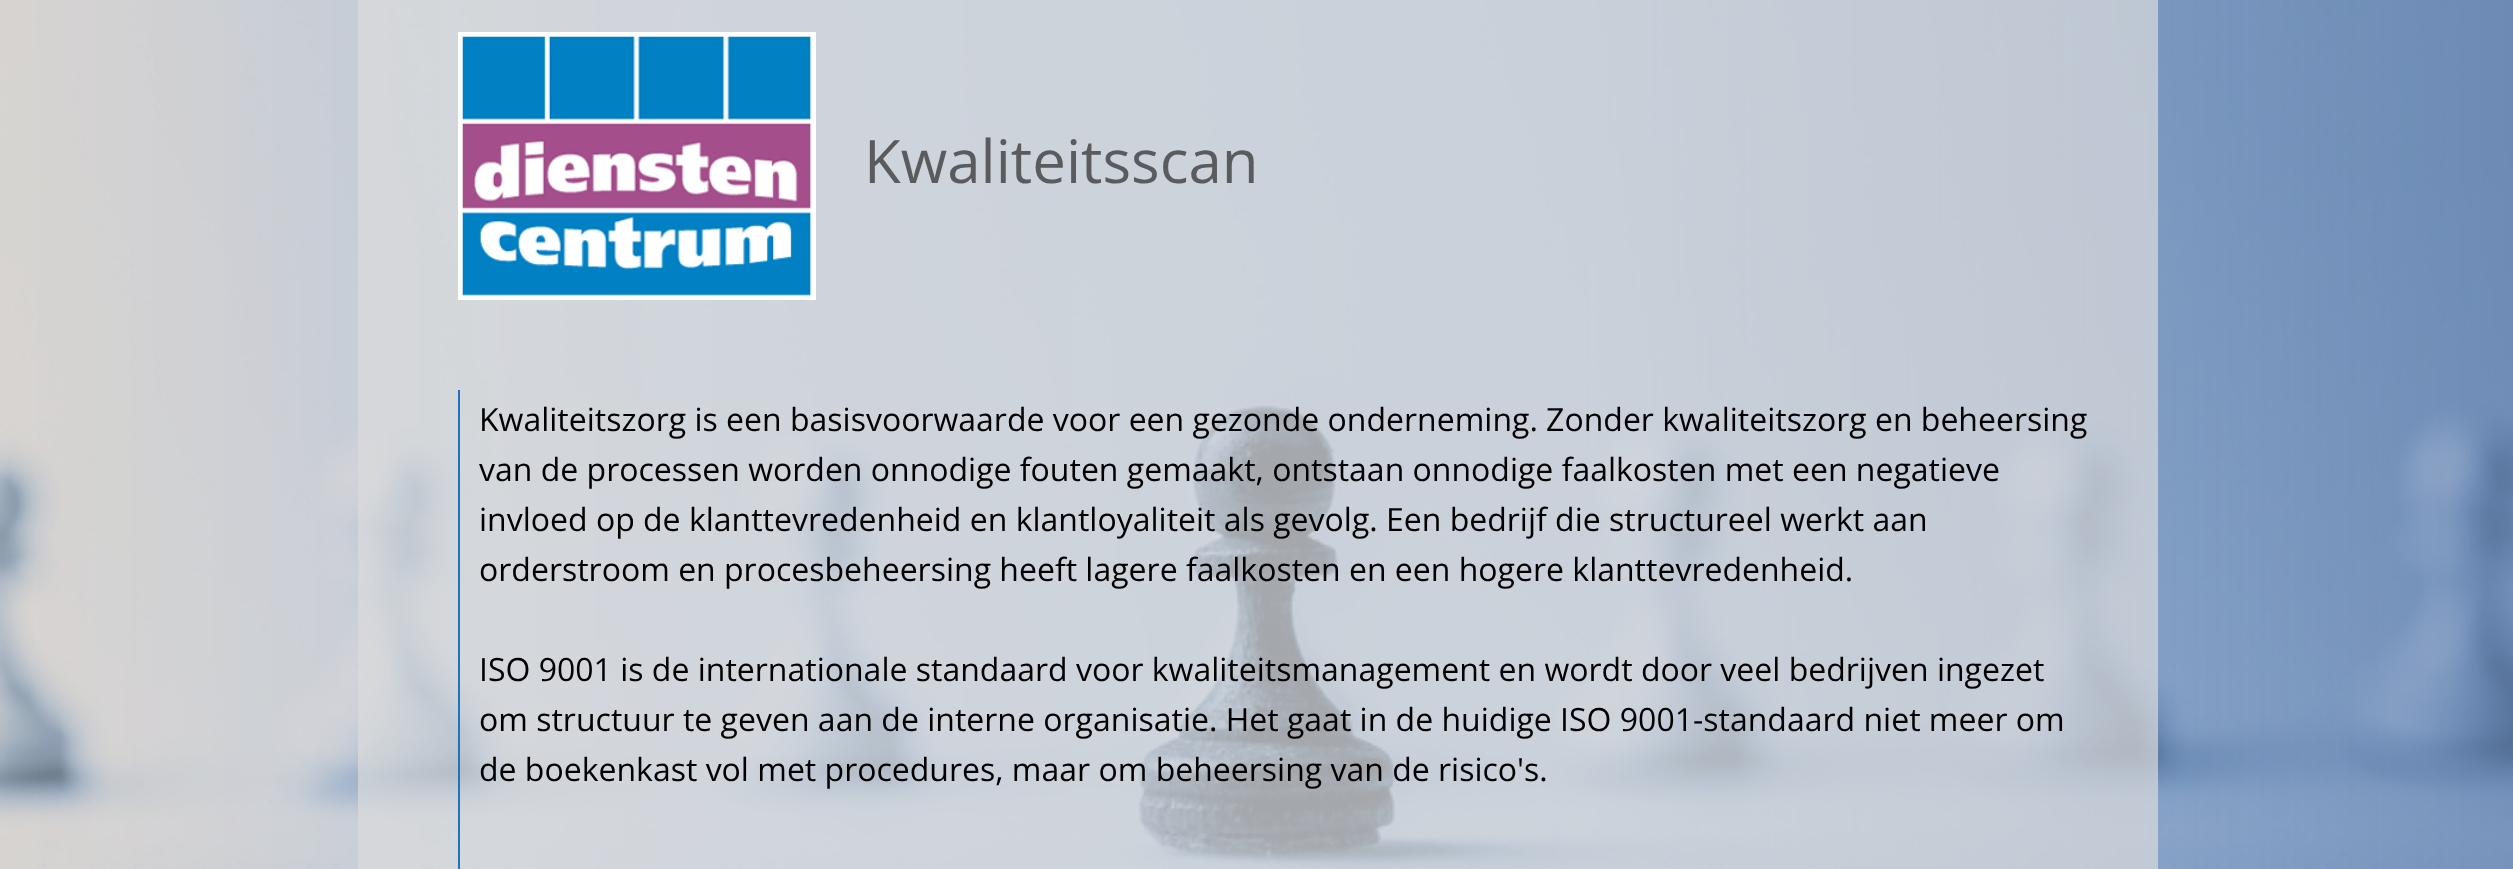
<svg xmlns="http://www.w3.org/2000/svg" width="2513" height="869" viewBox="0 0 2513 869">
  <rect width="100%" height="100%" fill="#fff"/>
  <image x="0" y="0" width="2513" height="869" href="img/1.png"/>
  <path d="M358 0h1800v869H358z" fill="#dcdcdcb3"/>
  <image x="458" y="32" width="358" height="268" href="img/2.png"/>
  <path d="M458 390h2v479H458z" fill="#1e73be"/>
  <text x="864" y="183" font-family="Open Sans" font-size="60" fill="#5a5b5d">Kwaliteitsscan</text>
  <g font-family="Open Sans" font-size="32" fill="#000">
    <text x="479" y="431">Kwaliteitszorg is een basisvoorwaarde voor een gezonde onderneming. Zonder kwaliteitszorg en beheersing</text>
    <text x="479" y="481">van de processen worden onnodige fouten gemaakt, ontstaan onnodige faalkosten met een negatieve</text>
    <text x="479" y="531">invloed op de klanttevredenheid en klantloyaliteit als gevolg. Een bedrijf die structureel werkt aan</text>
    <text x="479" y="581">orderstroom en procesbeheersing heeft lagere faalkosten en een hogere klanttevredenheid.</text>
    <text x="479" y="681">ISO 9001 is de internationale standaard voor kwaliteitsmanagement en wordt door veel bedrijven ingezet</text>
    <text x="479" y="731">om structuur te geven aan de interne organisatie. Het gaat in de huidige ISO 9001-standaard niet meer om</text>
    <text x="479" y="781">de boekenkast vol met procedures, maar om beheersing van de risico's.</text>
  </g>
</svg>
